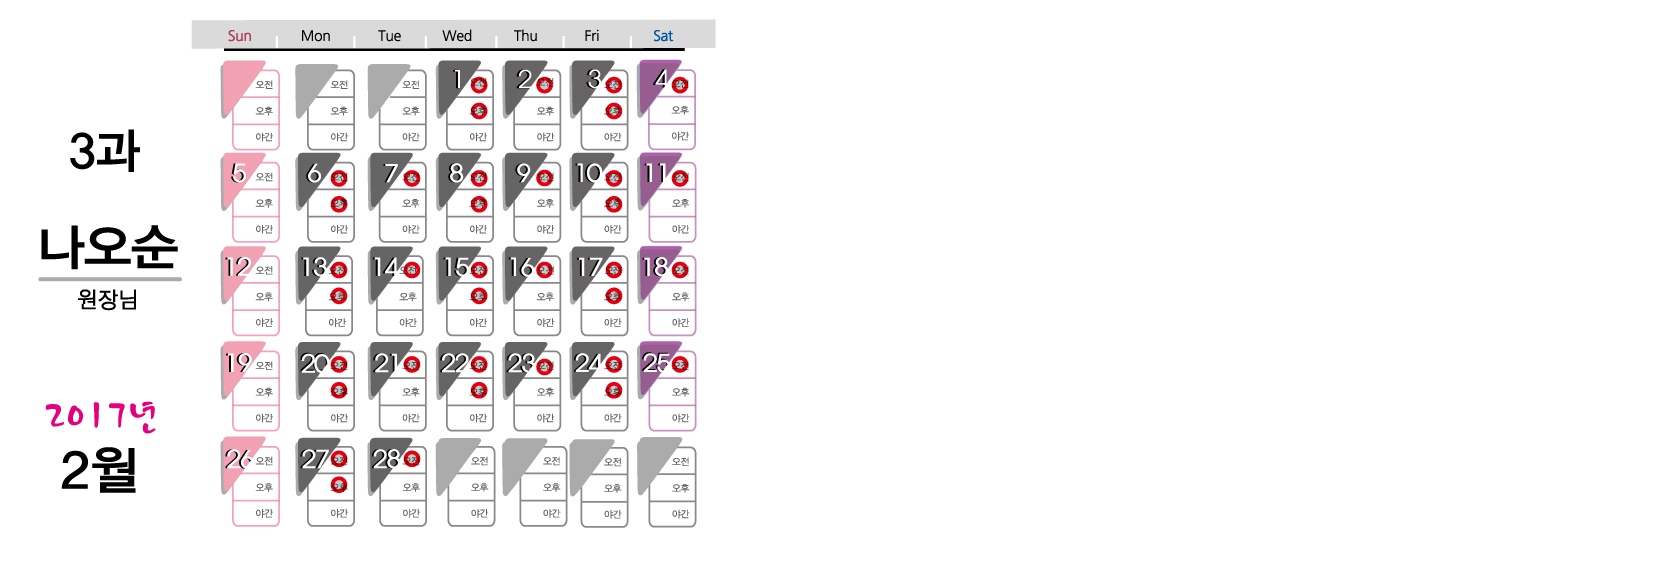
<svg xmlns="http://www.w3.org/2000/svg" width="1666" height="568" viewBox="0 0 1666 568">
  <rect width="100%" height="100%" fill="#fff"/>
  <image x="38" y="19" width="678" height="509" href="img/1.png"/>
</svg>
